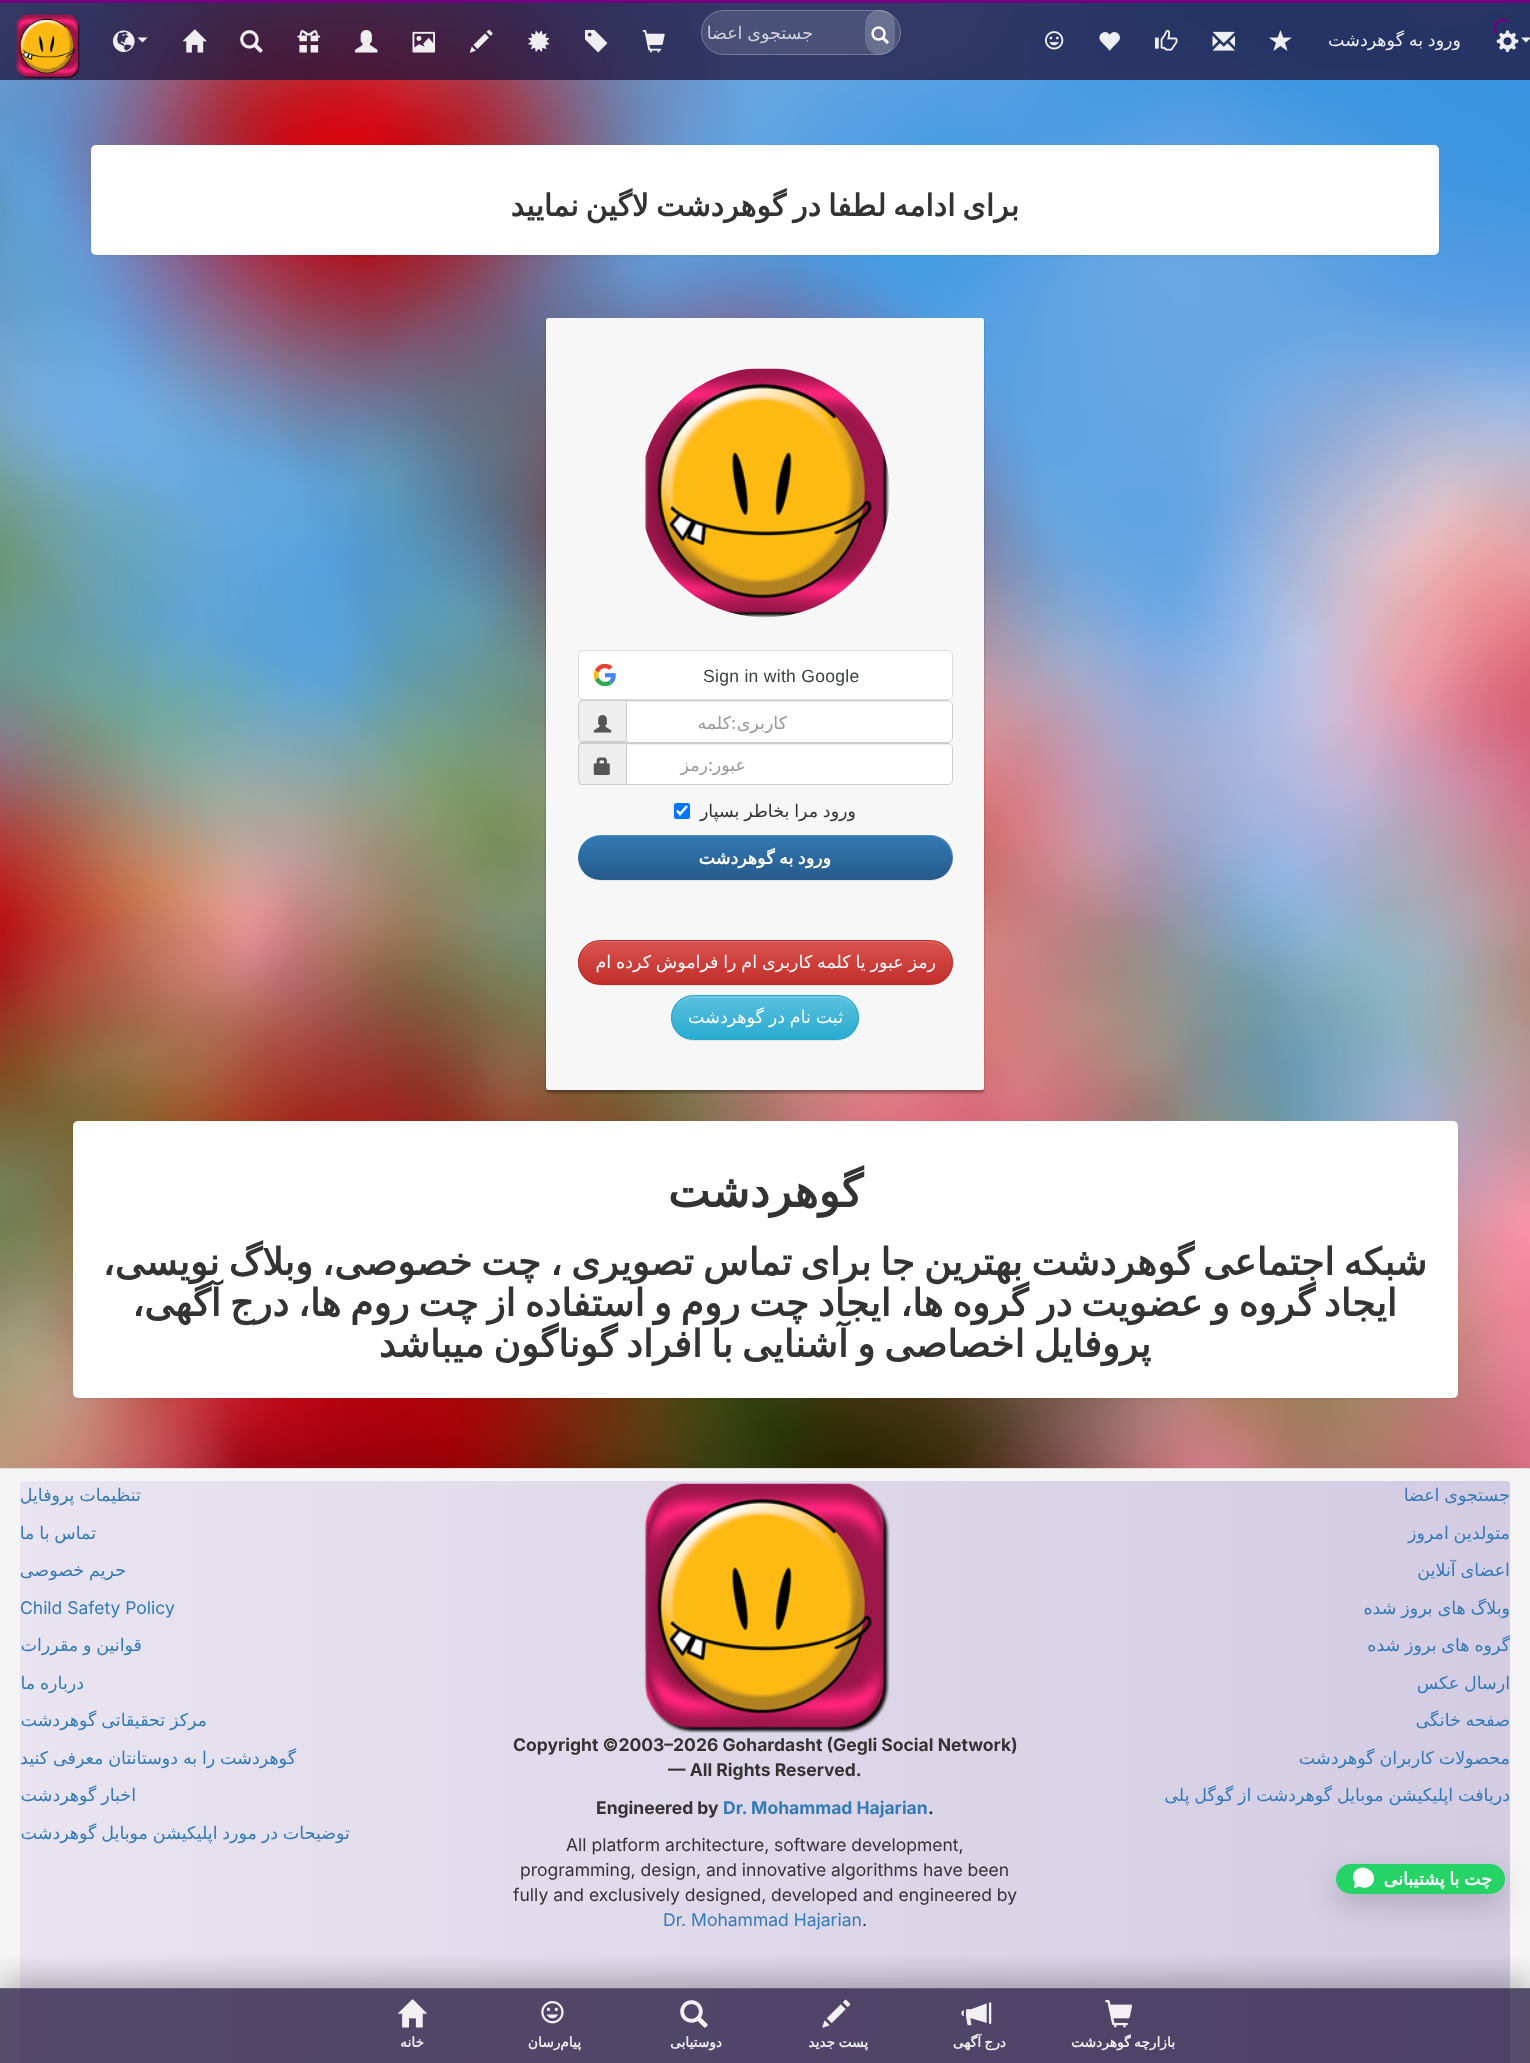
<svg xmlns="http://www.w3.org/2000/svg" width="1530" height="2063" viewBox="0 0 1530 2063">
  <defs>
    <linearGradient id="g1" gradientUnits="userSpaceOnUse" x1="765" y1="835" x2="765" y2="880"><stop offset="0" stop-color="#337ab7"/><stop offset="1" stop-color="#265a88"/></linearGradient>
    <clipPath id="clip1"><rect x="578" y="940" width="375" height="45" rx="22.5"/></clipPath>
    <linearGradient id="g2" gradientUnits="userSpaceOnUse" x1="765" y1="941" x2="765" y2="984"><stop offset="0" stop-color="#d9534f"/><stop offset="1" stop-color="#c12e2a"/></linearGradient>
    <clipPath id="clip2"><rect x="671" y="995" width="188" height="45" rx="22.5"/></clipPath>
    <linearGradient id="g3" gradientUnits="userSpaceOnUse" x1="765" y1="996" x2="765" y2="1039"><stop offset="0" stop-color="#5bc0de"/><stop offset="1" stop-color="#2aabd2"/></linearGradient>
    <clipPath id="clip3"><rect x="19" y="1481" width="1492" height="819" rx="5"/></clipPath>
    <linearGradient id="g4" gradientUnits="userSpaceOnUse" x1="20" y1="1891" x2="1510" y2="1891"><stop offset="0" stop-color="#e9e4f0"/><stop offset="1" stop-color="#d3cce3"/></linearGradient>
    <clipPath id="clip4"><path d="M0 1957h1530v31H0z"/></clipPath>
    <clipPath id="clip5"><path d="M643 711h293v22H643z"/></clipPath>
    <clipPath id="clip6"><path d="M643 754h293v21H643z"/></clipPath>
  </defs>
  <rect width="100%" height="100%" fill="#fff"/>
  <image x="0" y="3" width="1530" height="1465" href="img/1.png"/>
  <path d="M0 0h1530v3H0z" fill="#700280"/>
  <path d="M0 3h1530v77H0z" fill="#20143cbf"/>
  <image x="1496" y="30" width="23" height="22" href="img/2.png"/>
  <path d="M1497 33C1490 26 1501 15 1508 22" fill="none" stroke="#700280" stroke-width="2.5"/>
  <path d="M1521 37.5H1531L1526 42.5Z" fill="#eeeff3"/>
  <image x="1269" y="30" width="23" height="21" href="img/3.png"/>
  <image x="1212" y="31" width="23" height="20" href="img/4.png"/>
  <image x="1155" y="30" width="23" height="21" href="img/5.png"/>
  <image x="1099" y="32" width="21" height="19" href="img/6.png"/>
  <image x="1045" y="31" width="19" height="19" href="img/7.png"/>
  <rect x="701" y="10" width="200" height="45" rx="22.5" fill="#ffffff1f"/>
  <rect x="701.5" y="10.5" width="199" height="44" rx="22" fill="none" stroke="#ffffff40"/>
  <rect x="865" y="10" width="30" height="45" rx="15" fill="#ffffff2e"/>
  <path d="M880 11C888 11 895 18 895 26C895 5 865 5 865 26C865 18 872 11 880 11Z" fill="#ffffff26"/>
  <image x="871" y="26" width="18" height="18" href="img/8.png"/>
  <image x="642" y="30" width="23" height="23" href="img/9.png"/>
  <image x="585" y="30" width="23" height="23" href="img/10.png"/>
  <image x="528" y="30" width="22" height="22" href="img/11.png"/>
  <image x="469" y="29" width="24" height="24" href="img/12.png"/>
  <image x="412" y="31" width="23" height="22" href="img/13.png"/>
  <image x="355" y="30" width="23" height="23" href="img/14.png"/>
  <image x="297" y="30" width="23" height="23" href="img/15.png"/>
  <image x="240" y="30" width="23" height="23" href="img/16.png"/>
  <image x="182" y="29" width="25" height="24" href="img/17.png"/>
  <path d="M137.5 37.5H147.5L142.5 42.5Z" fill="#efeef1"/>
  <image x="112" y="30" width="23" height="23" href="img/18.png"/>
  <image x="16" y="14" width="64" height="65" href="img/19.png"/>
  <rect x="91" y="146" width="1348" height="110" rx="5" fill="#0000000d" filter="blur(1px)"/>
  <rect x="91" y="145" width="1348" height="110" rx="5" fill="#fff"/>
  <rect x="546" y="320" width="438" height="773" rx="2.5" fill="#0000004d" filter="blur(1px)"/>
  <rect x="546" y="318" width="438" height="772" rx="2.5" fill="#f7f7f7"/>
  <image x="644" y="368" width="246" height="250" href="img/20.png"/>
  <rect x="578.5" y="650.5" width="374" height="49" rx="4.5" fill="#fff" stroke="#dadce0"/>
  <image x="594" y="664" width="22" height="22" href="img/21.png"/>
  <path d="M626 700H948C951 700 953 702 953 705V738C953 741 951 743 948 743H626Z" fill="#fff"/>
  <path d="M628 702H948C950 702 951 704 951 706V705C951 703 949 701 947 701H628Z" fill="#ececec"/>
  <path d="M626.5 700.5H948C950.5 700.5 952.5 702.5 952.5 705V738C952.5 740.5 950.5 742.5 948 742.5H626.5Z" fill="none" stroke="#ccc"/>
  <path d="M583 700H626V743H583C580 743 578 741 578 738V705C578 702 580 700 583 700Z" fill="#eee"/>
  <path d="M582 700H626V742H582C580 742 578 740 578 738V705C578 702 580 700 582 700ZM582 701H626V741H582C580 741 579 740 579 738V705C579 703 580 701 582 701Z" fill="#ccc" fill-rule="evenodd"/>
  <image x="593" y="715" width="19" height="18" href="img/22.png"/>
  <path d="M626 743H948C951 743 953 745 953 748V780C953 783 951 785 948 785H626Z" fill="#fff"/>
  <path d="M628 745H948C950 745 951 747 951 749V748C951 746 949 744 947 744H628Z" fill="#ececec"/>
  <path d="M626.5 743.5H948C950.5 743.5 952.5 745.5 952.5 748V780C952.5 782.5 950.5 784.5 948 784.5H626.5Z" fill="none" stroke="#ccc"/>
  <path d="M583 743H626V785H583C580 785 578 783 578 780V748C578 745 580 743 583 743Z" fill="#eee"/>
  <path d="M582 742H626V785H582C580 785 578 783 578 780V748C578 745 580 742 582 742ZM582 744H626V784H582C580 784 579 782 579 780V748C579 745 580 744 582 744Z" fill="#ccc" fill-rule="evenodd"/>
  <image x="593" y="757" width="17" height="18" href="img/23.png"/>
  <rect x="674" y="803" width="16" height="16" rx="2.5" fill="#0075ff"/>
  <path d="M677 810.5L680 814L687 806" fill="none" stroke="#fff" stroke-width="2.6"/>
  <rect x="578" y="836" width="375" height="45" rx="22.5" fill="#00000012" filter="blur(0.5px)"/>
  <rect x="578" y="835" width="375" height="45" rx="22.5" fill="url(#g1)"/>
  <path d="M600 836H930C942 836 952 846 952 859C952 864 950 869 947 872C951 868 953 863 953 858C953 845 943 835 930 835H600C588 835 578 845 578 858C578 846 588 836 600 836Z" fill="#ffffff26"/>
  <rect x="578" y="941" width="375" height="45" rx="22.5" fill="#00000012" filter="blur(0.5px)"/>
  <g clip-path="url(#clip1)">
    <path d="M578 941h375v43H578z" fill="url(#g2)"/>
  </g>
  <path d="M600 942H930C942 942 951 952 951 963C951 951 942 941 930 941H600C588 941 579 951 579 963C579 952 588 942 600 942Z" fill="#ffffff26"/>
  <rect x="578.5" y="940.5" width="374" height="44" rx="22" fill="none" stroke="#b92c28"/>
  <rect x="671" y="996" width="188" height="45" rx="22.5" fill="#00000012" filter="blur(0.5px)"/>
  <g clip-path="url(#clip2)">
    <path d="M671 996h188v43H671z" fill="url(#g3)"/>
  </g>
  <path d="M694 998H836C848 998 858 1007 858 1018C858 1006 848 996 836 996H694C686 996 679 1001 675 1008C679 1002 686 998 694 998Z" fill="#ffffff26"/>
  <rect x="671.5" y="995.5" width="187" height="44" rx="22" fill="none" stroke="#28a4c9"/>
  <rect x="73" y="1123" width="1385" height="276" rx="5" fill="#0000000d" filter="blur(1px)"/>
  <rect x="73" y="1121" width="1385" height="277" rx="5" fill="#fff"/>
  <path d="M0 1469h1530v594H0z" fill="#f5f5f5"/>
  <path d="M0 1468h1530v1H0z" fill="#ddd"/>
  <g clip-path="url(#clip3)">
    <path d="M20 1481h1490v582H20z" fill="url(#g4)"/>
  </g>
  <image x="644" y="1483" width="246" height="250" href="img/24.png"/>
  <g clip-path="url(#clip4)">
    <path d="M0 1978h1530v76H0z" fill="#00000040" filter="blur(15px)"/>
  </g>
  <path d="M0 1988h1530v75H0z" fill="#20143cbf"/>
  <path d="M0 1988h1530v1H0z" fill="#ffffff1f"/>
  <image x="1105" y="2000" width="28" height="28" href="img/25.png"/>
  <image x="961" y="2002" width="31" height="24" href="img/26.png"/>
  <image x="822" y="1999" width="29" height="29" href="img/27.png"/>
  <image x="680" y="2000" width="28" height="28" href="img/28.png"/>
  <image x="541" y="2001" width="23" height="23" href="img/29.png"/>
  <image x="397" y="1999" width="30" height="29" href="img/30.png"/>
  <rect x="1336" y="1874" width="169" height="30" rx="15" fill="#0000002e" filter="blur(15px)"/>
  <rect x="1336" y="1864" width="169" height="30" rx="15" fill="#25d366"/>
  <image x="1353" y="1867" width="22" height="22" href="img/31.png"/>
  <text x="1461" y="46" word-spacing="-0.75" font-family="DejaVu Sans" font-size="17.5" direction="rtl" fill="#eeeff3">ورود به گوهردشت</text>
  <text x="813" y="39" word-spacing="-0.75" font-family="DejaVu Sans" font-size="17.5" direction="rtl" fill="#d2d3dd">جستجوی اعضا</text>
  <text x="1019" y="216" word-spacing="-2.5" font-family="DejaVu Sans" font-size="30" font-weight="bold" direction="rtl" fill="#333">برای ادامه لطفا در گوهردشت لاگین نمایید</text>
  <text x="703" y="682" font-family="Liberation Sans" font-size="17.5" letter-spacing="0.3" fill="#3c4043">Sign in with Google</text>
  <g clip-path="url(#clip5)">
    <text x="787" y="729" font-family="DejaVu Sans" font-size="17.5" direction="rtl" fill="#999">کاربری</text>
  </g>
  <text x="736" y="729" font-family="Inter" font-size="17.5" direction="rtl" fill="#999">:</text>
  <text x="731" y="729" font-family="DejaVu Sans" font-size="17.5" direction="rtl" fill="#999">کلمه</text>
  <g clip-path="url(#clip6)">
    <text x="746" y="771" font-family="DejaVu Sans" font-size="17.5" direction="rtl" fill="#999">عبور</text>
  </g>
  <text x="713" y="771" font-family="Inter" font-size="17.5" direction="rtl" fill="#999">:</text>
  <g clip-path="url(#clip6)">
    <text x="708" y="771" font-family="DejaVu Sans" font-size="17.5" direction="rtl" fill="#999">رمز</text>
  </g>
  <text x="856" y="817" word-spacing="-0.75" font-family="DejaVu Sans" font-size="17.5" direction="rtl" fill="#333">ورود مرا بخاطر بسپار</text>
  <text x="831" y="864" word-spacing="-1" font-family="DejaVu Sans" font-size="17.5" font-weight="bold" direction="rtl" fill="#fff">ورود به گوهردشت</text>
  <g font-family="DejaVu Sans" font-size="17.5" direction="rtl" fill="#fff">
    <text x="936" y="968" word-spacing="-0.75">رمز عبور یا کلمه کاربری ام را فراموش کرده ام</text>
    <text x="843" y="1023" word-spacing="-0.75">ثبت نام در گوهردشت</text>
  </g>
  <text x="863" y="1207" font-family="DejaVu Sans" font-size="45" font-weight="bold" direction="rtl" fill="#333">گوهردشت</text>
  <g font-family="DejaVu Sans" font-size="37.5" font-weight="bold" direction="rtl" fill="#333">
    <text x="1427" y="1275" word-spacing="-3">شبکه اجتماعی گوهردشت بهترین جا برای</text>
    <text x="792" y="1275" word-spacing="-3">تماس تصویری ،</text>
    <text x="541" y="1275" word-spacing="-3">چت خصوصی، وبلاگ نویسی،</text>
    <text x="1397" y="1316" word-spacing="-3">ایجاد گروه و عضویت در گروه ها، ایجاد چت روم و استفاده از چت روم ها، درج آگهی،</text>
    <text x="1151" y="1357" word-spacing="-3">پروفایل اخصاصی و آشنایی با افراد گوناگون</text>
    <text x="484" y="1357">میباشد</text>
  </g>
  <g font-family="DejaVu Sans" font-size="17.5" direction="rtl" fill="#337ab7">
    <text x="1510" y="1501" word-spacing="-0.75">جستجوی اعضا</text>
    <text x="1510" y="1539" word-spacing="-0.75">متولدین امروز</text>
    <text x="1510" y="1576" word-spacing="-0.75">اعضای آنلاین</text>
    <text x="1510" y="1614" word-spacing="-0.75">وبلاگ های بروز شده</text>
    <text x="1510" y="1651" word-spacing="-0.75">گروه های بروز شده</text>
    <text x="1510" y="1689" word-spacing="-0.75">ارسال عکس</text>
    <text x="1510" y="1726" word-spacing="-0.75">صفحه خانگی</text>
    <text x="1510" y="1764" word-spacing="-0.75">محصولات کاربران گوهردشت</text>
    <text x="1510" y="1801" word-spacing="-0.75">دریافت اپلیکیشن موبایل گوهردشت از گوگل پلی</text>
    <text x="141" y="1501" word-spacing="-0.75">تنظیمات پروفایل</text>
    <text x="96" y="1539" word-spacing="-0.75">تماس با ما</text>
    <text x="126" y="1576" word-spacing="-0.75">حریم خصوصی</text>
  </g>
  <text x="20" y="1614" font-family="Inter" font-size="17.5" fill="#337ab7">Child Safety Policy</text>
  <g font-family="DejaVu Sans" font-size="17.5" direction="rtl" fill="#337ab7">
    <text x="142" y="1651" word-spacing="-0.75">قوانین و مقررات</text>
    <text x="84" y="1689" word-spacing="-0.75">درباره ما</text>
    <text x="207" y="1726" word-spacing="-0.75">مرکز تحقیقاتی گوهردشت</text>
    <text x="296" y="1764" word-spacing="-0.75">گوهردشت را به دوستانتان معرفی کنید</text>
    <text x="136" y="1801" word-spacing="-0.75">اخبار گوهردشت</text>
    <text x="350" y="1839" word-spacing="-0.75">توضیحات در مورد اپلیکیشن موبایل گوهردشت</text>
  </g>
  <g font-family="Inter" font-size="17.5" font-weight="bold" fill="#333">
    <text x="513" y="1751">Copyright ©2003–2026 Gohardasht (Gegli Social Network)</text>
    <text x="668" y="1776">— All Rights Reserved.</text>
    <text x="928" y="1814">.</text>
  </g>
  <text x="723" y="1814" font-family="Inter" font-size="17.5" font-weight="bold" fill="#337ab7">Dr. Mohammad Hajarian</text>
  <text x="596" y="1814" font-family="Inter" font-size="17.5" font-weight="bold" fill="#333">Engineered by</text>
  <g font-family="Inter" font-size="17.5" fill="#333">
    <text x="566" y="1851">All platform architecture, software development,</text>
    <text x="520" y="1876">programming, design, and innovative algorithms have been</text>
    <text x="513" y="1901">fully and exclusively designed, developed and engineered by</text>
    <text x="862" y="1926">.</text>
  </g>
  <text x="663" y="1926" font-family="Inter" font-size="17.5" fill="#337ab7">Dr. Mohammad Hajarian</text>
  <g font-family="DejaVu Sans" font-size="13.75" font-weight="bold" letter-spacing="0.25" direction="rtl" fill="#eeeff3">
    <text x="1175" y="2047" word-spacing="-1">بازارچه گوهردشت</text>
    <text x="1006" y="2047" word-spacing="-1">درج آگهی</text>
    <text x="868" y="2047" word-spacing="-1">پست جدید</text>
    <text x="722" y="2047">دوستیابی</text>
    <text x="581" y="2047">پیام‌رسان</text>
    <text x="424" y="2047">خانه</text>
  </g>
  <text x="1492" y="1885" word-spacing="-1" font-family="DejaVu Sans" font-size="17.5" font-weight="bold" direction="rtl" fill="#fff">چت با پشتیبانی</text>
</svg>
